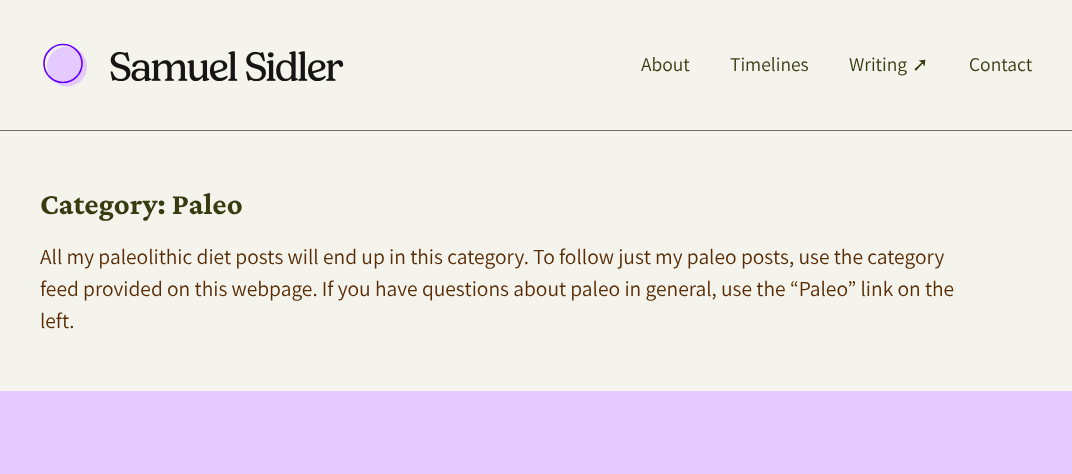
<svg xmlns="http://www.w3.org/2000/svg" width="1072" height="474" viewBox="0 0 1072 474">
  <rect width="100%" height="100%" fill="#f4f4ed"/>
  <path d="M0 130h1072v1H0z" fill="#70716e"/>
  <circle cx="67" cy="66.5" r="20" fill="#e5caff"/>
  <circle cx="63" cy="63.5" r="19" fill="none" stroke="#6300ff" stroke-width="1.6"/>
  <image x="110" y="51" width="234" height="30" href="img/1.png"/>
  <path d="M0 391h1072v83H0z" fill="#e5caff"/>
  <g font-family="Assistant" font-size="19.5" fill="#373b0f">
    <text x="641" y="71">About</text>
    <text x="730" y="71">Timelines</text>
    <text x="849" y="71">Writing</text>
  </g>
  <text x="912" y="71" font-family="DejaVu Sans" font-size="19.5" fill="#373b0f">➚</text>
  <text x="969" y="71" font-family="Assistant" font-size="19.5" fill="#373b0f">Contact</text>
  <text x="40" y="214" font-family="Crimson Pro" font-size="30.75" font-weight="bold" fill="#373b0f">Category: Paleo</text>
  <g font-family="Assistant" font-size="21.45" fill="#592c06">
    <text x="40" y="264">All my paleolithic diet posts will end up in this category. To follow just my paleo posts, use the category</text>
    <text x="40" y="296">feed provided on this webpage. If you have questions about paleo in general, use the “Paleo” link on the</text>
    <text x="40" y="328">left.</text>
  </g>
</svg>
